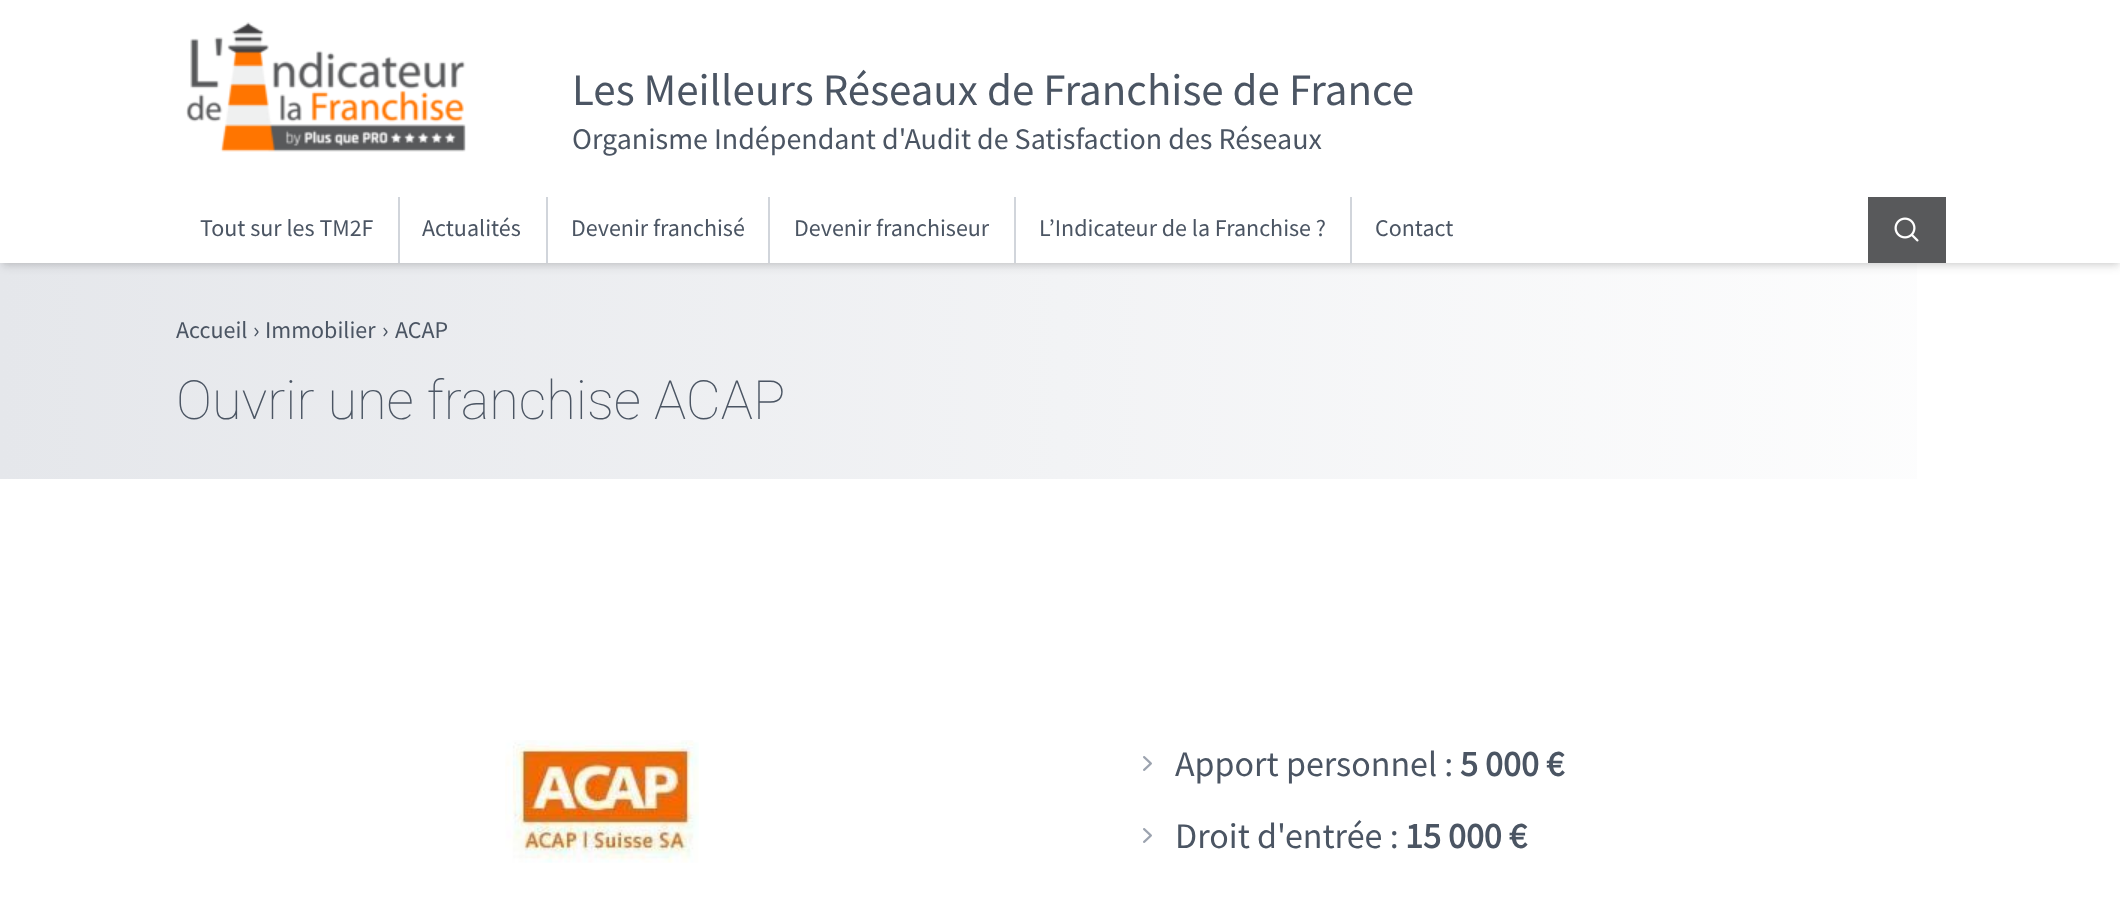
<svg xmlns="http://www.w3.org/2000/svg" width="2120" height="909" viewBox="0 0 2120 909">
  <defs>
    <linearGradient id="g1" gradientUnits="userSpaceOnUse" x1="0" y1="305" x2="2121" y2="304"><stop offset="0" stop-color="#e5e7eb"/><stop offset="1" stop-color="#fff"/></linearGradient>
    <clipPath id="clip1"><path d="M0 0H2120V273H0ZM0 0H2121V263H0Z" clip-rule="evenodd"/></clipPath>
    <clipPath id="clip2"><path d="M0 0H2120V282H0ZM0 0H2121V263H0Z" clip-rule="evenodd"/></clipPath>
    <linearGradient id="g2" gradientUnits="userSpaceOnUse" x1="0" y1="413" x2="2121" y2="412"><stop offset="0" stop-color="#e5e7eb"/><stop offset="1" stop-color="#fff"/></linearGradient>
  </defs>
  <rect width="100%" height="100%" fill="#fff"/>
  <path d="M0 263h1917v84H0z" fill="url(#g1)"/>
  <g clip-path="url(#clip1)">
    <path d="M3 6h2115v257H3z" fill="#0000001a" filter="blur(3px)"/>
  </g>
  <g clip-path="url(#clip2)">
    <path d="M2 8h2118v259H2z" fill="#0000001a" filter="blur(4.5px)"/>
  </g>
  <image x="186" y="22" width="280" height="130" href="img/1.png"/>
  <path d="M398 197h2v66H398z" fill="#d1d5db"/>
  <path d="M546 197h2v66H546z" fill="#d1d5db"/>
  <path d="M768 197h2v66H768z" fill="#d1d5db"/>
  <path d="M1014 197h2v66H1014z" fill="#d1d5db"/>
  <path d="M1350 197h2v66H1350z" fill="#d1d5db"/>
  <path d="M1868 197h78v66H1868z" fill="#58595b"/>
  <image x="1894" y="217" width="25" height="25" href="img/2.png"/>
  <path d="M0 347h1917v132H0z" fill="url(#g2)"/>
  <image x="505" y="740" width="194" height="123" href="img/3.png"/>
  <image x="1143" y="756" width="9" height="15" href="img/4.png"/>
  <image x="1143" y="828" width="9" height="15" href="img/4.png"/>
  <text x="572" y="105" font-family="Source Sans Pro" font-size="45" fill="#4b5563">Les Meilleurs Réseaux de Franchise de France</text>
  <text x="572" y="149" font-family="Source Sans Pro" font-size="30" fill="#4b5563">Organisme Indépendant d'Audit de Satisfaction des Réseaux</text>
  <g font-family="Source Sans Pro" font-size="24" fill="#4b5563">
    <text x="200" y="236">Tout sur les TM2F</text>
    <text x="422" y="236">Actualités</text>
    <text x="571" y="236">Devenir franchisé</text>
    <text x="794" y="236">Devenir franchiseur</text>
    <text x="1039" y="236">L’Indicateur de la Franchise ?</text>
    <text x="1375" y="236">Contact</text>
    <text x="176" y="338">Accueil</text>
    <text x="253" y="338">›</text>
    <text x="265" y="338">Immobilier</text>
    <text x="382" y="338">›</text>
    <text x="395" y="338">ACAP</text>
  </g>
  <text x="176" y="419" font-family="Roboto" font-size="54" font-weight="100" fill="#4b5563">Ouvrir une franchise ACAP</text>
  <text x="1175" y="776" font-family="Source Sans Pro" font-size="36" fill="#4b5563">Apport personnel :</text>
  <text x="1460" y="776" font-family="Source Sans Pro" font-size="36" font-weight="bold" fill="#4b5563">5 000 €</text>
  <text x="1175" y="848" font-family="Source Sans Pro" font-size="36" fill="#4b5563">Droit d'entrée :</text>
  <text x="1405" y="848" font-family="Source Sans Pro" font-size="36" font-weight="bold" fill="#4b5563">15 000 €</text>
</svg>
